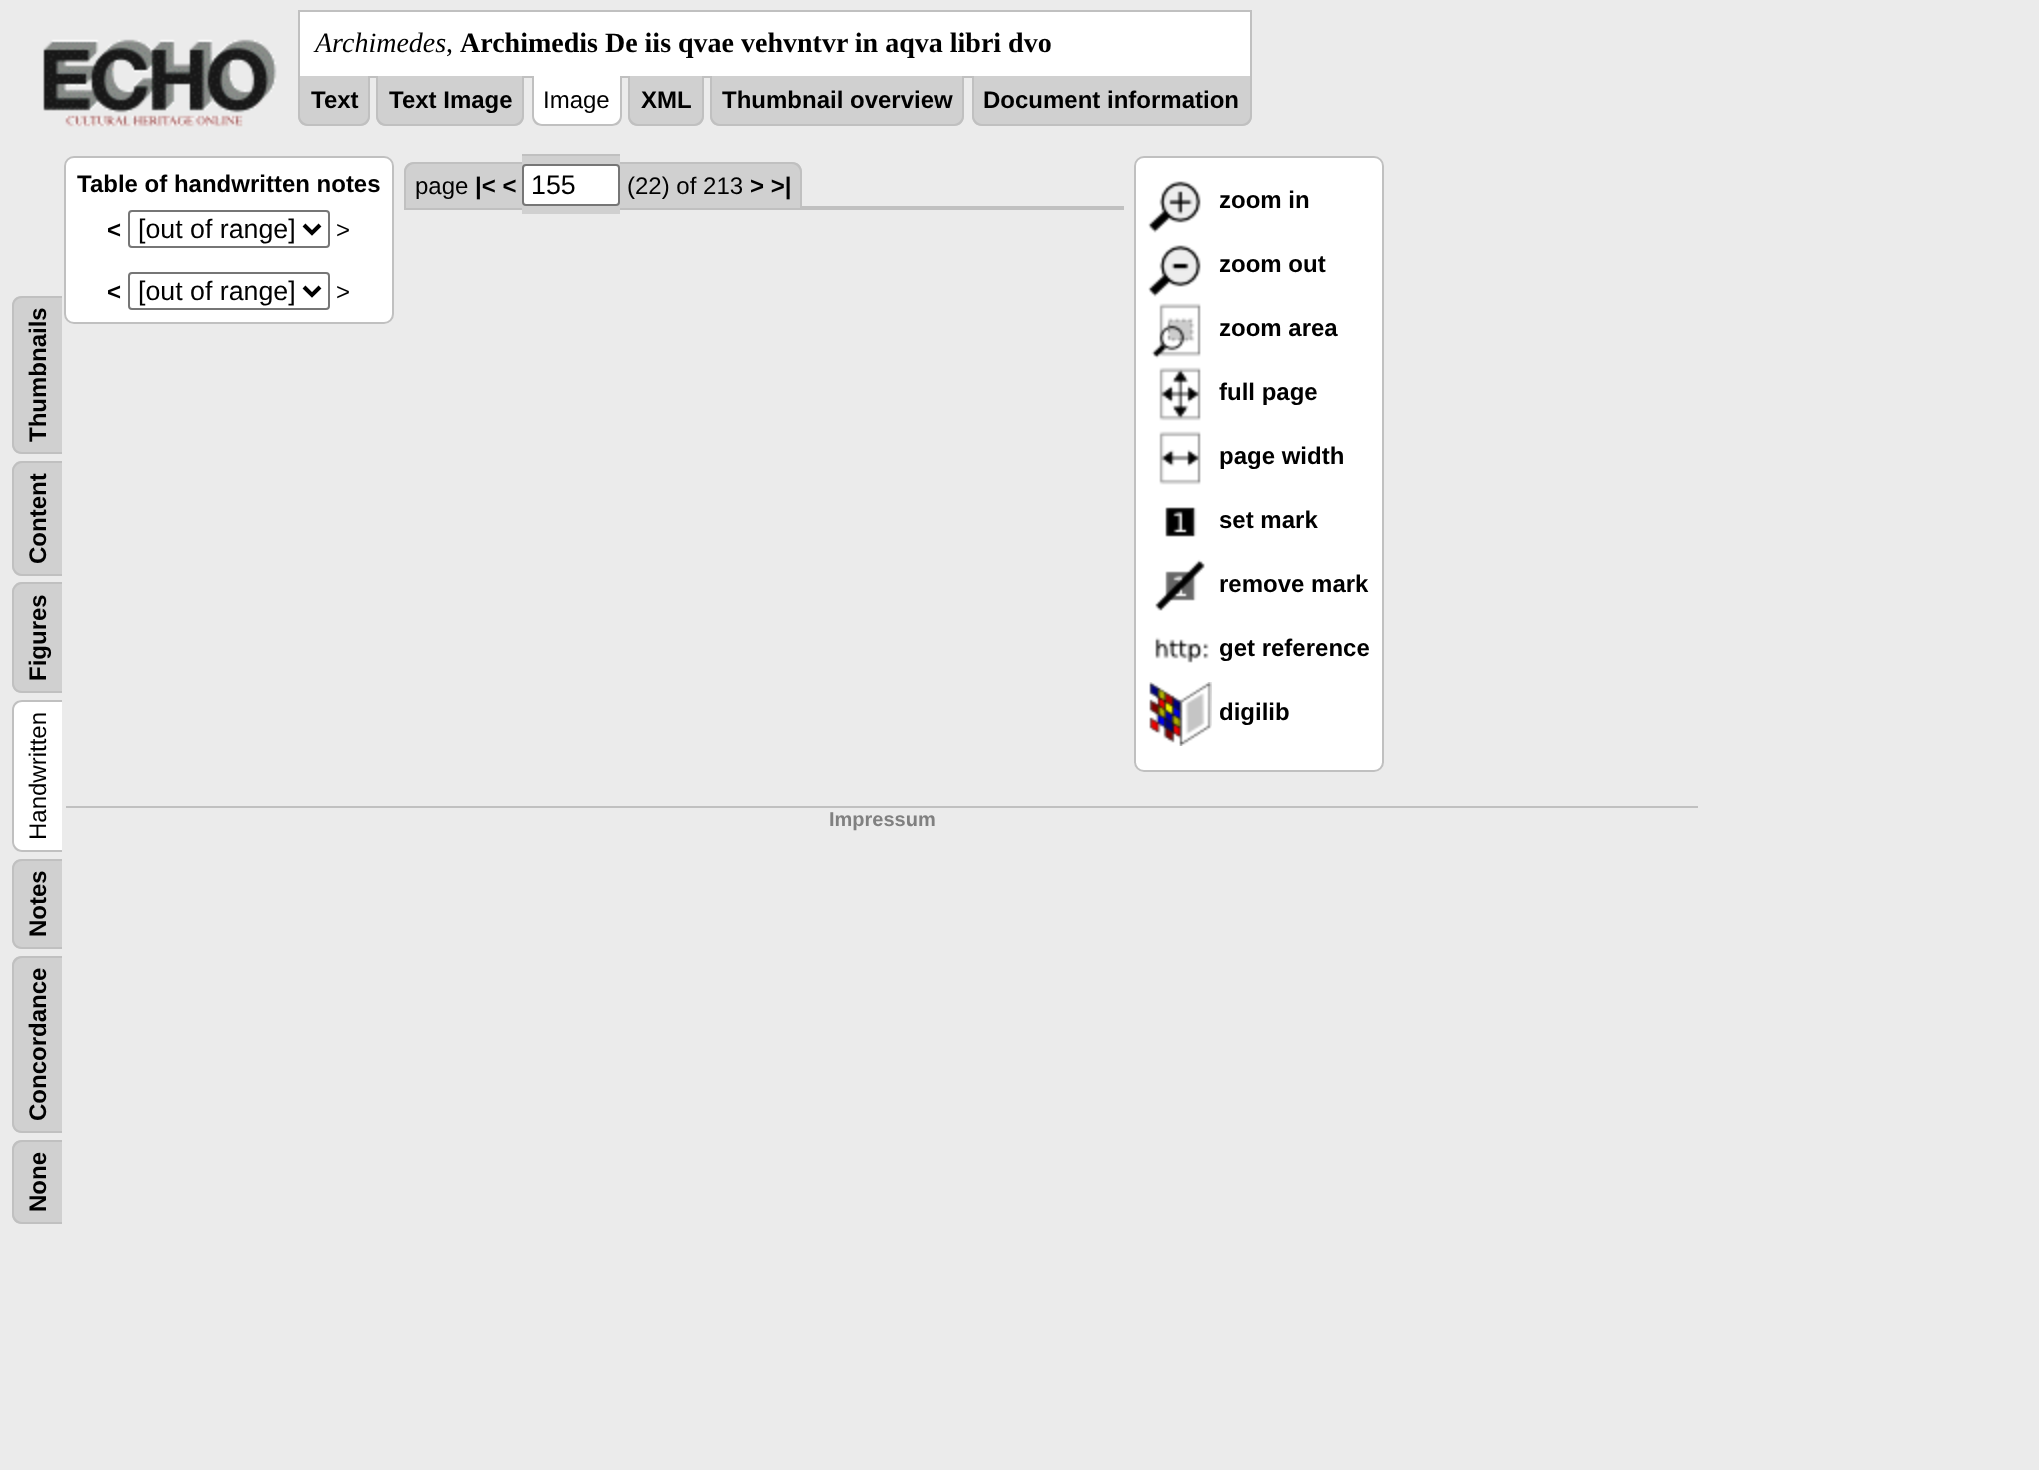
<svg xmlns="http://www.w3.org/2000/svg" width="2039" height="1470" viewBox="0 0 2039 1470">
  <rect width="100%" height="100%" fill="#ebebeb"/>
  <image x="43" y="39" width="234" height="88" href="img/1.png"/>
  <path d="M299 11h952v66H299z" fill="#fff" stroke="#c0c0c0" stroke-width="2"/>
  <path d="M298 76H370V116C370 121.5 365.5 126 360 126H308C302.5 126 298 121.5 298 116Z" fill="#d0d0d0"/>
  <path d="M298 76H370V116C370 122 366 126 360 126H308C302 126 298 122 298 116ZM300 76H368V116C368 120 364 124 360 124H308C304 124 300 120 300 116Z" fill="#c0c0c0" fill-rule="evenodd"/>
  <path d="M376 76H524V116C524 121.5 519.5 126 514 126H386C380.5 126 376 121.5 376 116Z" fill="#d0d0d0"/>
  <path d="M376 76H524V116C524 122 520 126 514 126H386C380 126 376 122 376 116ZM378 76H522V116C522 120 518 124 514 124H386C382 124 378 120 378 116Z" fill="#c0c0c0" fill-rule="evenodd"/>
  <path d="M532 76H622V116C622 121.5 617.5 126 612 126H542C536.5 126 532 121.5 532 116Z" fill="#fff"/>
  <path d="M532 76H622V116C622 122 618 126 612 126H542C536 126 532 122 532 116ZM534 76H620V116C620 120 616 124 612 124H542C538 124 534 120 534 116Z" fill="#c0c0c0" fill-rule="evenodd"/>
  <path d="M628 76H704V116C704 121.5 699.5 126 694 126H638C632.5 126 628 121.5 628 116Z" fill="#d0d0d0"/>
  <path d="M628 76H704V116C704 122 700 126 694 126H638C632 126 628 122 628 116ZM630 76H702V116C702 120 698 124 694 124H638C634 124 630 120 630 116Z" fill="#c0c0c0" fill-rule="evenodd"/>
  <path d="M710 76H964V116C964 121.5 959.5 126 954 126H720C714.5 126 710 121.5 710 116Z" fill="#d0d0d0"/>
  <path d="M710 76H964V116C964 122 960 126 954 126H720C714 126 710 122 710 116ZM712 76H962V116C962 120 958 124 954 124H720C716 124 712 120 712 116Z" fill="#c0c0c0" fill-rule="evenodd"/>
  <path d="M972 76H1252V116C1252 121.5 1247.5 126 1242 126H982C976.5 126 972 121.5 972 116Z" fill="#d0d0d0"/>
  <path d="M972 76H1252V116C1252 122 1248 126 1242 126H982C976 126 972 122 972 116ZM974 76H1250V116C1250 120 1246 124 1242 124H982C978 124 974 120 974 116Z" fill="#c0c0c0" fill-rule="evenodd"/>
  <rect x="65" y="157" width="328" height="166" rx="9" fill="#fff" stroke="#c0c0c0" stroke-width="2"/>
  <rect x="129" y="211" width="200" height="36" rx="3" fill="none" stroke="#767676" stroke-width="2"/>
  <path d="M304 225L312 233L320 225" fill="none" stroke="#000" stroke-width="4"/>
  <rect x="129" y="273" width="200" height="36" rx="3" fill="none" stroke="#767676" stroke-width="2"/>
  <path d="M304 287L312 295L320 287" fill="none" stroke="#000" stroke-width="4"/>
  <path d="M12 444V306C12 300 16 296 22 296H62V454H22C16 454 12 450 12 444Z" fill="#d0d0d0"/>
  <path d="M12 444V306C12 300 16 296 22 296H62V454H22C16 454 12 450 12 444ZM14 444V306C14 301 18 298 22 298H62V452H22C18 452 14 449 14 444Z" fill="#c0c0c0" fill-rule="evenodd"/>
  <path d="M12 566V471C12 466 16 461 22 461H62V576H22C16 576 12 571 12 566Z" fill="#d0d0d0"/>
  <path d="M12 566V471C12 466 16 461 22 461H62V576H22C16 576 12 571 12 566ZM14 566V471C14 467 18 463 22 463H62V574H22C18 574 14 570 14 566Z" fill="#c0c0c0" fill-rule="evenodd"/>
  <path d="M12 683V592C12 587 16 582 22 582H62V693H22C16 693 12 689 12 683Z" fill="#d0d0d0"/>
  <path d="M12 683V592C12 587 16 582 22 582H62V693H22C16 693 12 689 12 683ZM14 683V592C14 588 18 584 22 584H62V691H22C18 691 14 688 14 683Z" fill="#c0c0c0" fill-rule="evenodd"/>
  <path d="M12 842V710C12 704 16 700 22 700H62V852H22C16 852 12 847 12 842Z" fill="#fff"/>
  <path d="M12 842V710C12 704 16 700 22 700H62V852H22C16 852 12 847 12 842ZM14 842V710C14 705 18 702 22 702H62V850H22C18 850 14 846 14 842Z" fill="#c0c0c0" fill-rule="evenodd"/>
  <path d="M12 939V869C12 863 16 859 22 859H62V949H22C16 949 12 945 12 939Z" fill="#d0d0d0"/>
  <path d="M12 939V869C12 863 16 859 22 859H62V949H22C16 949 12 945 12 939ZM14 939V869C14 864 18 861 22 861H62V947H22C18 947 14 944 14 939Z" fill="#c0c0c0" fill-rule="evenodd"/>
  <path d="M12 1123V966C12 960 16 956 22 956H62V1133H22C16 1133 12 1129 12 1123Z" fill="#d0d0d0"/>
  <path d="M12 1123V966C12 960 16 956 22 956H62V1133H22C16 1133 12 1129 12 1123ZM14 1123V966C14 962 18 958 22 958H62V1131H22C18 1131 14 1128 14 1123Z" fill="#c0c0c0" fill-rule="evenodd"/>
  <path d="M12 1214V1150C12 1144 16 1140 22 1140H62V1224H22C16 1224 12 1220 12 1214Z" fill="#d0d0d0"/>
  <path d="M12 1214V1150C12 1144 16 1140 22 1140H62V1224H22C16 1224 12 1220 12 1214ZM14 1214V1150C14 1146 18 1142 22 1142H62V1222H22C18 1222 14 1218 14 1214Z" fill="#c0c0c0" fill-rule="evenodd"/>
  <path d="M404 206h720v4H404z" fill="#c0c0c0"/>
  <path d="M414 162H474V208H404V172C404 166.5 408.5 162 414 162Z" fill="#d0d0d0"/>
  <path d="M414 162H474V208H404V172C404 166 408 162 414 162ZM414 164H474V208H406V172C406 168 410 164 414 164Z" fill="#c0c0c0" fill-rule="evenodd"/>
  <path d="M474 164h22v44H474z" fill="#d0d0d0"/>
  <path d="M474 162h22v2H474z" fill="#c0c0c0"/>
  <path d="M496 162h6v46H496z" fill="#d0d0d0"/>
  <path d="M496 162h20v2H496z" fill="#c0c0c0"/>
  <path d="M502 164h14v44H502z" fill="#d0d0d0"/>
  <path d="M516 162h6v46H516z" fill="#d0d0d0"/>
  <path d="M516 162h6v2H516z" fill="#c0c0c0"/>
  <path d="M522 156h98v58H522z" fill="#d0d0d0"/>
  <path d="M522 154h98v2H522z" fill="#c0c0c0"/>
  <path d="M620 162h8v46H620z" fill="#d0d0d0"/>
  <path d="M620 162h144v2H620z" fill="#c0c0c0"/>
  <path d="M628 164h136v44H628z" fill="#d0d0d0"/>
  <path d="M764 162h6v46H764z" fill="#d0d0d0"/>
  <path d="M764 162h6v2H764z" fill="#c0c0c0"/>
  <path d="M770 162H792C797.5 162 802 166.5 802 172V208H770Z" fill="#d0d0d0"/>
  <path d="M770 162H792C798 162 802 166 802 172V208H770ZM770 164H792C796 164 800 168 800 172V208H770Z" fill="#c0c0c0" fill-rule="evenodd"/>
  <rect x="523" y="165" width="96" height="40" rx="3" fill="#fff" stroke="#767676" stroke-width="2"/>
  <rect x="1135" y="157" width="248" height="614" rx="9" fill="#fff" stroke="#c0c0c0" stroke-width="2"/>
  <image x="1148" y="181" width="53" height="52" href="img/2.png"/>
  <image x="1148" y="245" width="53" height="52" href="img/3.png"/>
  <image x="1151" y="303" width="50" height="56" href="img/4.png"/>
  <image x="1159" y="367" width="42" height="54" href="img/5.png"/>
  <image x="1159" y="431" width="42" height="54" href="img/6.png"/>
  <image x="1165" y="507" width="32" height="30" href="img/7.png"/>
  <image x="1155" y="559" width="50" height="52" href="img/8.png"/>
  <image x="1155" y="637" width="54" height="26" href="img/9.png"/>
  <image x="1149" y="682" width="63" height="64" href="img/10.png"/>
  <path d="M66 806h1632v2H66z" fill="#c0c0c0"/>
  <text x="315" y="52" font-family="Liberation Serif" font-size="28" font-style="italic" fill="#000">Archimedes</text>
  <text x="446" y="52" font-family="Liberation Serif" font-size="28" fill="#000">,</text>
  <text x="460" y="52" font-family="Liberation Serif" font-size="28" font-weight="bold" fill="#000">Archimedis De iis qvae vehvntvr in aqva libri dvo</text>
  <g font-family="Liberation Sans" font-size="24" font-weight="bold" fill="#000">
    <text x="311" y="108">Text</text>
    <text x="389" y="108">Text Image</text>
  </g>
  <text x="543" y="108" font-family="Liberation Sans" font-size="24" fill="#000">Image</text>
  <g font-family="Liberation Sans" font-size="24" font-weight="bold" fill="#000">
    <text x="641" y="108">XML</text>
    <text x="722" y="108">Thumbnail overview</text>
    <text x="983" y="108">Document information</text>
    <text x="77" y="192">Table of handwritten notes</text>
    <text x="107" y="238">&lt;</text>
  </g>
  <text x="138" y="238" font-family="Liberation Sans" font-size="26.75" fill="#000">[out of range]</text>
  <text x="336" y="238" font-family="Liberation Sans" font-size="24" fill="#000">&gt;</text>
  <text x="107" y="300" font-family="Liberation Sans" font-size="24" font-weight="bold" fill="#000">&lt;</text>
  <text x="138" y="300" font-family="Liberation Sans" font-size="26.75" fill="#000">[out of range]</text>
  <text x="336" y="300" font-family="Liberation Sans" font-size="24" fill="#000">&gt;</text>
  <g font-family="Liberation Sans" font-size="24" font-weight="bold" fill="#000">
    <text x="46" y="442" transform="rotate(-90 46 442)">Thumbnails</text>
    <text x="46" y="564" transform="rotate(-90 46 564)">Content</text>
    <text x="46" y="681" transform="rotate(-90 46 681)">Figures</text>
  </g>
  <text x="46" y="840" transform="rotate(-90 46 840)" font-family="Liberation Sans" font-size="24" fill="#000">Handwritten</text>
  <g font-family="Liberation Sans" font-size="24" font-weight="bold" fill="#000">
    <text x="46" y="937" transform="rotate(-90 46 937)">Notes</text>
    <text x="46" y="1121" transform="rotate(-90 46 1121)">Concordance</text>
    <text x="46" y="1212" transform="rotate(-90 46 1212)">None</text>
  </g>
  <text x="415" y="194" font-family="Liberation Sans" font-size="24" fill="#000">page</text>
  <text x="475" y="194" font-family="Liberation Sans" font-size="24" font-weight="bold" fill="#000">|&lt; &lt;</text>
  <text x="531" y="194" font-family="Liberation Sans" font-size="26.75" fill="#000">155</text>
  <text x="627" y="194" font-family="Liberation Sans" font-size="24" fill="#000">(22) of 213</text>
  <g font-family="Liberation Sans" font-size="24" font-weight="bold" fill="#000">
    <text x="750" y="194">&gt; &gt;|</text>
    <text x="1219" y="208">zoom in</text>
    <text x="1219" y="272">zoom out</text>
    <text x="1219" y="336">zoom area</text>
    <text x="1219" y="400">full page</text>
    <text x="1219" y="464">page width</text>
    <text x="1219" y="528">set mark</text>
    <text x="1219" y="592">remove mark</text>
    <text x="1219" y="656">get reference</text>
    <text x="1219" y="720">digilib</text>
  </g>
  <text x="829" y="826" font-family="Liberation Sans" font-size="20" font-weight="bold" fill="#808080">Impressum</text>
</svg>
